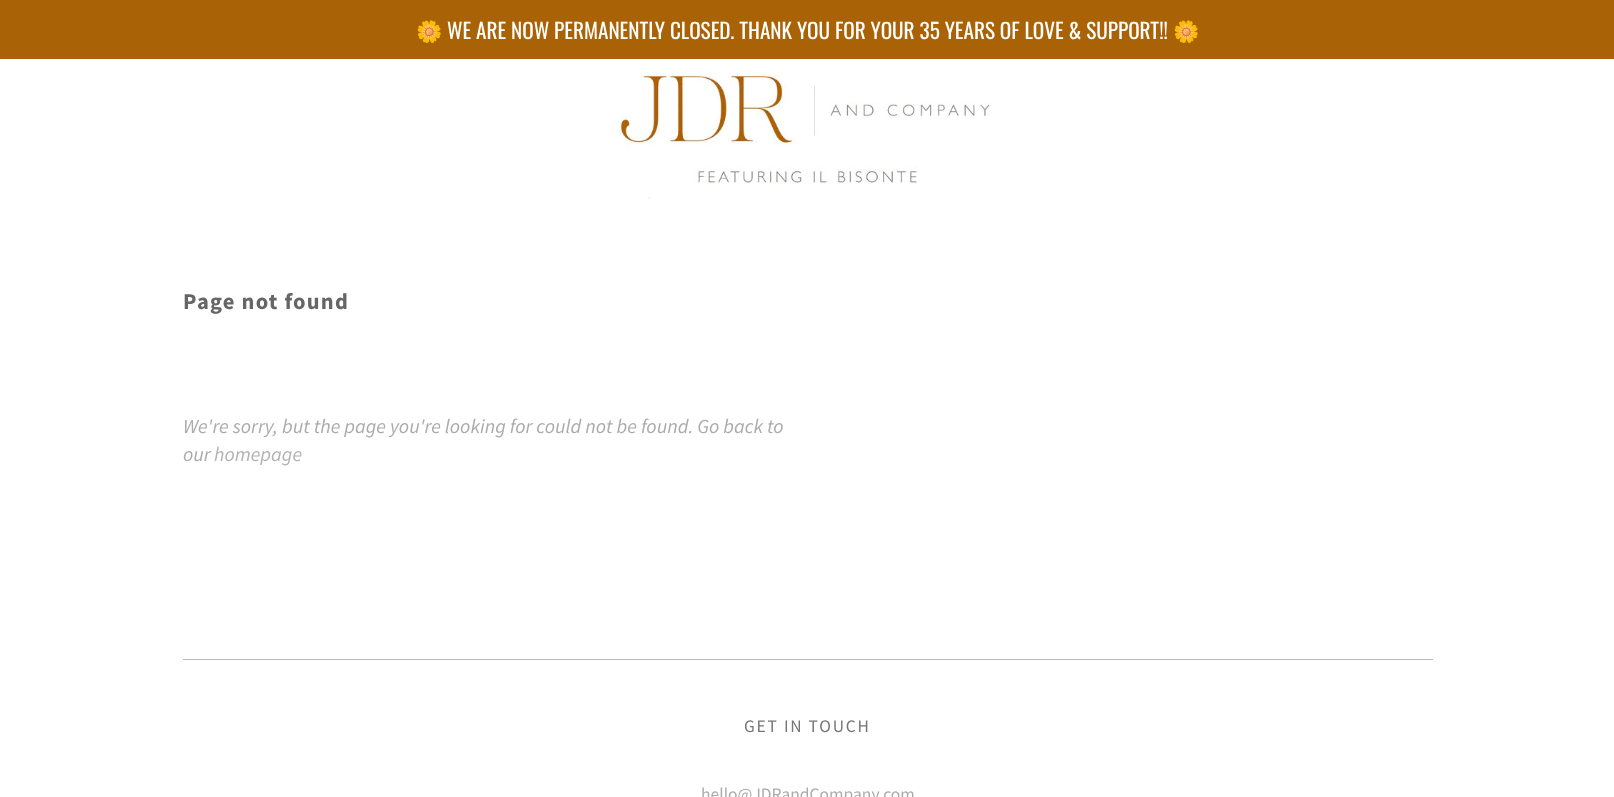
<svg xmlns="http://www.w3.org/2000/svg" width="1614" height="797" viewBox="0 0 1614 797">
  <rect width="100%" height="100%" fill="#fff"/>
  <path d="M0 0h1614v59H0z" fill="#a96306"/>
  <image x="620" y="74" width="371" height="125" href="img/1.png"/>
  <path d="M183 659h1250v1H183z" fill="#b9b9b9"/>
  <text x="416" y="39" font-family="Noto Color Emoji" font-size="21.25" fill="#fff">🌼</text>
  <text x="447" y="39" font-family="Oswald" font-size="21.25" fill="#fff">WE ARE NOW PERMANENTLY CLOSED. THANK YOU FOR YOUR 35 YEARS OF LOVE &amp; SUPPORT!!</text>
  <text x="1173" y="39" font-family="Noto Color Emoji" font-size="21.25" fill="#fff">🌼</text>
  <text x="183" y="309" font-family="Source Sans Pro" font-size="22.5" font-weight="bold" letter-spacing="1.25" fill="#666">Page not found</text>
  <g font-family="Source Sans Pro" font-size="20" font-style="italic" fill="#ababab">
    <text x="183" y="433">We're sorry, but the page you're looking for could not be found. Go back to</text>
    <text x="183" y="461">our</text>
  </g>
  <text x="214" y="461" font-family="Source Sans Pro" font-size="20" font-style="italic" fill="#b3b3b3">homepage</text>
  <text x="744" y="732" font-family="Source Sans Pro" font-size="17.5" letter-spacing="1.75" fill="#757575">GET IN TOUCH</text>
  <text x="701" y="800" font-family="Source Sans Pro" font-size="17.5" fill="#ababab">hello@JDRandCompany.com</text>
</svg>
